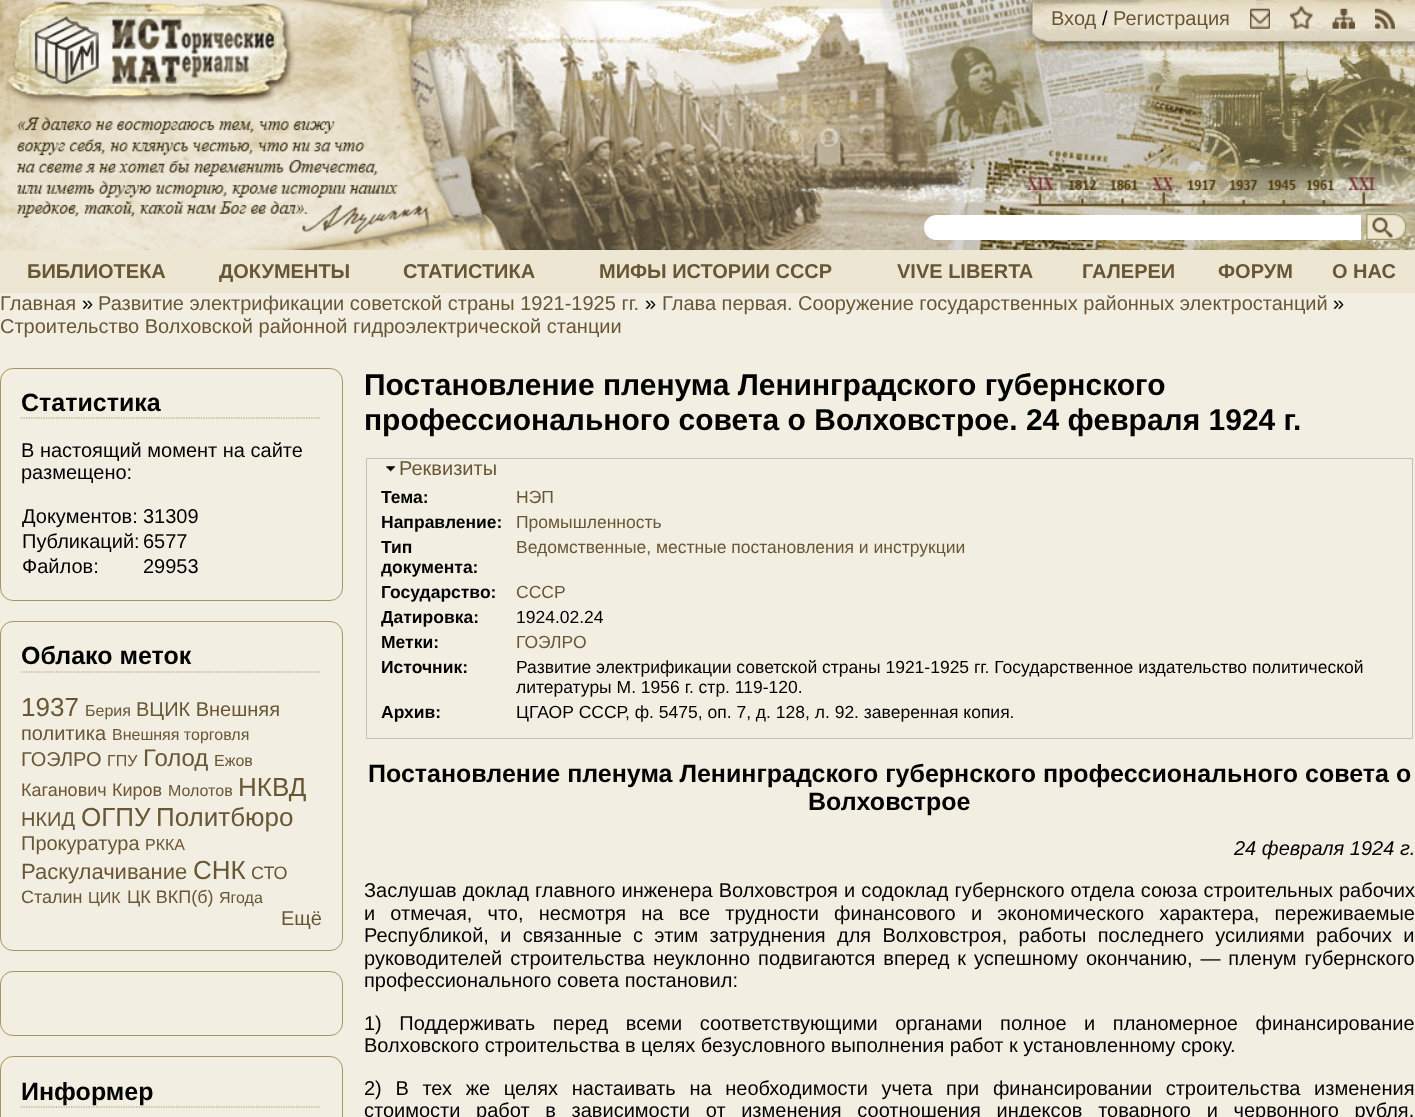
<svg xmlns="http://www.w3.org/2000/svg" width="1415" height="1117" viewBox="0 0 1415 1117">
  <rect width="100%" height="100%" fill="#f2eee1"/>
  <image x="408" y="0" width="1007" height="250" href="img/1.png"/>
  <image x="0" y="0" width="507" height="250" href="img/2.png"/>
  <image x="7" y="1" width="288" height="105" href="img/3.png"/>
  <image x="1024" y="0" width="391" height="50" href="img/4.png"/>
  <image x="1250" y="8" width="20" height="21" href="img/5.png"/>
  <image x="1290" y="6" width="23" height="23" href="img/6.png"/>
  <image x="1332" y="8" width="23" height="21" href="img/7.png"/>
  <image x="1375" y="8" width="20" height="21" href="img/8.png"/>
  <path d="M936.5 215H1361V240H936.5C929.5 240 924 234.5 924 227.5C924 220.5 929.5 215 936.5 215Z" fill="#fff"/>
  <image x="1366" y="213" width="41" height="27" href="img/9.png"/>
  <path d="M0 250h1415v43H0z" fill="#ede6d3"/>
  <rect x="0.5" y="368.5" width="342" height="232" rx="12.5" fill="none" stroke="#a89664"/>
  <path d="M21 418H321" fill="none" stroke="#a89664" stroke-width="1.2" stroke-dasharray="1.25 1.25"/>
  <rect x="0.5" y="621.5" width="342" height="329" rx="12.5" fill="none" stroke="#a89664"/>
  <path d="M21 672H321" fill="none" stroke="#a89664" stroke-width="1.2" stroke-dasharray="1.25 1.25"/>
  <rect x="0.5" y="971.5" width="342" height="64" rx="12.5" fill="none" stroke="#a89664"/>
  <rect x="0.5" y="1056.5" width="342" height="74" rx="12.5" fill="none" stroke="#a89664"/>
  <path d="M21 1107H321" fill="none" stroke="#a89664" stroke-width="1.2" stroke-dasharray="1.25 1.25"/>
  <path d="M366.5 458.5h1046v280H366.5z" fill="none" stroke="#c0c0c0"/>
  <image x="386" y="466" width="9" height="6" href="img/10.png"/>
  <text x="1051" y="25" font-family="Liberation Sans" font-size="20" fill="#685635">Вход</text>
  <text x="1102" y="25" font-family="Liberation Sans" font-size="20" fill="#000">/</text>
  <text x="1113" y="25" font-family="Liberation Sans" font-size="20" fill="#685635">Регистрация</text>
  <g font-family="Liberation Sans" font-size="20" font-weight="bold" fill="#685635">
    <text x="27" y="278">БИБЛИОТЕКА</text>
    <text x="219" y="278">ДОКУМЕНТЫ</text>
    <text x="403" y="278">СТАТИСТИКА</text>
    <text x="599" y="278">МИФЫ ИСТОРИИ СССР</text>
    <text x="897" y="278">VIVE LIBERTA</text>
    <text x="1082" y="278">ГАЛЕРЕИ</text>
    <text x="1218" y="278">ФОРУМ</text>
    <text x="1332" y="278">О НАС</text>
  </g>
  <text x="0" y="310" font-family="Liberation Sans" font-size="20" fill="#685635">Главная</text>
  <text x="82" y="310" font-family="Liberation Sans" font-size="20" fill="#000">»</text>
  <text x="98" y="310" font-family="Liberation Sans" font-size="20" fill="#685635">Развитие электрификации советской страны 1921-1925 гг.</text>
  <text x="645" y="310" font-family="Liberation Sans" font-size="20" fill="#000">»</text>
  <text x="662" y="310" font-family="Liberation Sans" font-size="20" fill="#685635">Глава первая. Сооружение государственных районных электростанций</text>
  <text x="1333" y="310" font-family="Liberation Sans" font-size="20" fill="#000">»</text>
  <text x="0" y="333" font-family="Liberation Sans" font-size="20" fill="#685635">Строительство Волховской районной гидроэлектрической станции</text>
  <text x="21" y="411" font-family="Liberation Sans" font-size="25" font-weight="bold" fill="#000">Статистика</text>
  <g font-family="Liberation Sans" font-size="20" fill="#000">
    <text x="21" y="457">В настоящий момент на сайте</text>
    <text x="21" y="479">размещено:</text>
    <text x="22" y="523">Документов:</text>
    <text x="143" y="523">31309</text>
    <text x="22" y="548">Публикаций:</text>
    <text x="143" y="548">6577</text>
    <text x="22" y="573">Файлов:</text>
    <text x="143" y="573">29953</text>
  </g>
  <text x="21" y="664" font-family="Liberation Sans" font-size="25" font-weight="bold" fill="#000">Облако меток</text>
  <text x="21" y="716" font-family="Liberation Sans" font-size="26" fill="#685635">1937</text>
  <text x="85" y="716" font-family="Liberation Sans" font-size="16" fill="#685635">Берия</text>
  <g font-family="Liberation Sans" font-size="20" fill="#685635">
    <text x="136" y="716">ВЦИК Внешняя</text>
    <text x="21" y="740">политика</text>
  </g>
  <text x="112" y="740" font-family="Liberation Sans" font-size="16" fill="#685635">Внешняя торговля</text>
  <text x="21" y="766" font-family="Liberation Sans" font-size="20" fill="#685635">ГОЭЛРО</text>
  <text x="107" y="766" font-family="Liberation Sans" font-size="16" fill="#685635">ГПУ</text>
  <text x="143" y="766" font-family="Liberation Sans" font-size="24" fill="#685635">Голод</text>
  <text x="214" y="766" font-family="Liberation Sans" font-size="16" fill="#685635">Ежов</text>
  <g font-family="Liberation Sans" font-size="18" fill="#685635">
    <text x="21" y="796">Каганович</text>
    <text x="112" y="796">Киров</text>
  </g>
  <text x="168" y="796" font-family="Liberation Sans" font-size="16" fill="#685635">Молотов</text>
  <text x="238" y="796" font-family="Liberation Sans" font-size="26" fill="#685635">НКВД</text>
  <text x="21" y="826" font-family="Liberation Sans" font-size="20" fill="#685635">НКИД</text>
  <g font-family="Liberation Sans" font-size="26" fill="#685635">
    <text x="81" y="826">ОГПУ</text>
    <text x="156" y="826">Политбюро</text>
  </g>
  <text x="21" y="850" font-family="Liberation Sans" font-size="20" fill="#685635">Прокуратура</text>
  <text x="145" y="850" font-family="Liberation Sans" font-size="16" fill="#685635">РККА</text>
  <text x="21" y="879" font-family="Liberation Sans" font-size="22" fill="#685635">Раскулачивание</text>
  <text x="193" y="879" font-family="Liberation Sans" font-size="26" fill="#685635">СНК</text>
  <g font-family="Liberation Sans" font-size="18" fill="#685635">
    <text x="251" y="879">СТО</text>
    <text x="21" y="903">Сталин</text>
  </g>
  <text x="88" y="903" font-family="Liberation Sans" font-size="16" fill="#685635">ЦИК</text>
  <text x="127" y="903" font-family="Liberation Sans" font-size="18" fill="#685635">ЦК ВКП(б)</text>
  <text x="219" y="903" font-family="Liberation Sans" font-size="16" fill="#685635">Ягода</text>
  <text x="281" y="925" font-family="Liberation Sans" font-size="20" fill="#685635">Ещё</text>
  <text x="21" y="1100" font-family="Liberation Sans" font-size="25" font-weight="bold" fill="#000">Информер</text>
  <g font-family="Liberation Sans" font-size="30" font-weight="bold" fill="#000">
    <text x="364" y="395">Постановление пленума Ленинградского губернского</text>
    <text x="364" y="430">профессионального совета о Волховстрое. 24 февраля 1924 г.</text>
  </g>
  <text x="399" y="475" font-family="Liberation Sans" font-size="20" fill="#685635">Реквизиты</text>
  <text x="381" y="503" font-family="Liberation Sans" font-size="17.5" font-weight="bold" fill="#000">Тема:</text>
  <text x="516" y="503" font-family="Liberation Sans" font-size="17.5" fill="#685635">НЭП</text>
  <text x="381" y="528" font-family="Liberation Sans" font-size="17.5" font-weight="bold" fill="#000">Направление:</text>
  <text x="516" y="528" font-family="Liberation Sans" font-size="17.5" fill="#685635">Промышленность</text>
  <g font-family="Liberation Sans" font-size="17.5" font-weight="bold" fill="#000">
    <text x="381" y="553">Тип</text>
    <text x="381" y="573">документа:</text>
  </g>
  <text x="516" y="553" font-family="Liberation Sans" font-size="17.5" fill="#685635">Ведомственные, местные постановления и инструкции</text>
  <text x="381" y="598" font-family="Liberation Sans" font-size="17.5" font-weight="bold" fill="#000">Государство:</text>
  <text x="516" y="598" font-family="Liberation Sans" font-size="17.5" fill="#685635">СССР</text>
  <text x="381" y="623" font-family="Liberation Sans" font-size="17.5" font-weight="bold" fill="#000">Датировка:</text>
  <text x="516" y="623" font-family="Liberation Sans" font-size="17.5" fill="#000">1924.02.24</text>
  <text x="381" y="648" font-family="Liberation Sans" font-size="17.5" font-weight="bold" fill="#000">Метки:</text>
  <text x="516" y="648" font-family="Liberation Sans" font-size="17.5" fill="#685635">ГОЭЛРО</text>
  <text x="381" y="673" font-family="Liberation Sans" font-size="17.5" font-weight="bold" fill="#000">Источник:</text>
  <g font-family="Liberation Sans" font-size="17.5" fill="#000">
    <text x="516" y="673">Развитие электрификации советской страны 1921-1925 гг. Государственное издательство политической</text>
    <text x="516" y="693">литературы М. 1956 г. стр. 119-120.</text>
  </g>
  <text x="381" y="718" font-family="Liberation Sans" font-size="17.5" font-weight="bold" fill="#000">Архив:</text>
  <text x="516" y="718" font-family="Liberation Sans" font-size="17.5" fill="#000">ЦГАОР СССР, ф. 5475, оп. 7, д. 128, л. 92. заверенная копия.</text>
  <g font-family="Liberation Sans" font-size="25" font-weight="bold" fill="#000">
    <text x="368" y="782">Постановление пленума Ленинградского губернского профессионального совета о</text>
    <text x="808" y="810">Волховстрое</text>
  </g>
  <text x="1234" y="855" font-family="Liberation Sans" font-size="20" font-style="italic" fill="#000">24 февраля 1924 г.</text>
  <g font-family="Liberation Sans" font-size="20" fill="#000">
    <text x="364" y="897" word-spacing="0.5">Заслушав доклад главного инженера Волховстроя и содоклад губернского отдела союза строительных рабочих</text>
    <text x="364" y="920" word-spacing="9.6">и отмечая, что, несмотря на все трудности финансового и экономического характера, переживаемые</text>
    <text x="364" y="942" word-spacing="5.75">Республикой, и связанные с этим затруднения для Волховстроя, работы последнего усилиями рабочих и</text>
    <text x="364" y="965" word-spacing="2.4">руководителей строительства неуклонно подвигаются вперед к успешному окончанию, — пленум губернского</text>
    <text x="364" y="987">профессионального совета постановил:</text>
    <text x="364" y="1030" word-spacing="12">1) Поддерживать перед всеми соответствующими органами полное и планомерное финансирование</text>
    <text x="364" y="1052">Волховского строительства в целях безусловного выполнения работ к установленному сроку.</text>
    <text x="364" y="1095" word-spacing="8.1">2) В тех же целях настаивать на необходимости учета при финансировании строительства изменения</text>
    <text x="364" y="1117" word-spacing="10.1">стоимости работ в зависимости от изменения соотношения индексов товарного и червонного рубля,</text>
  </g>
</svg>
